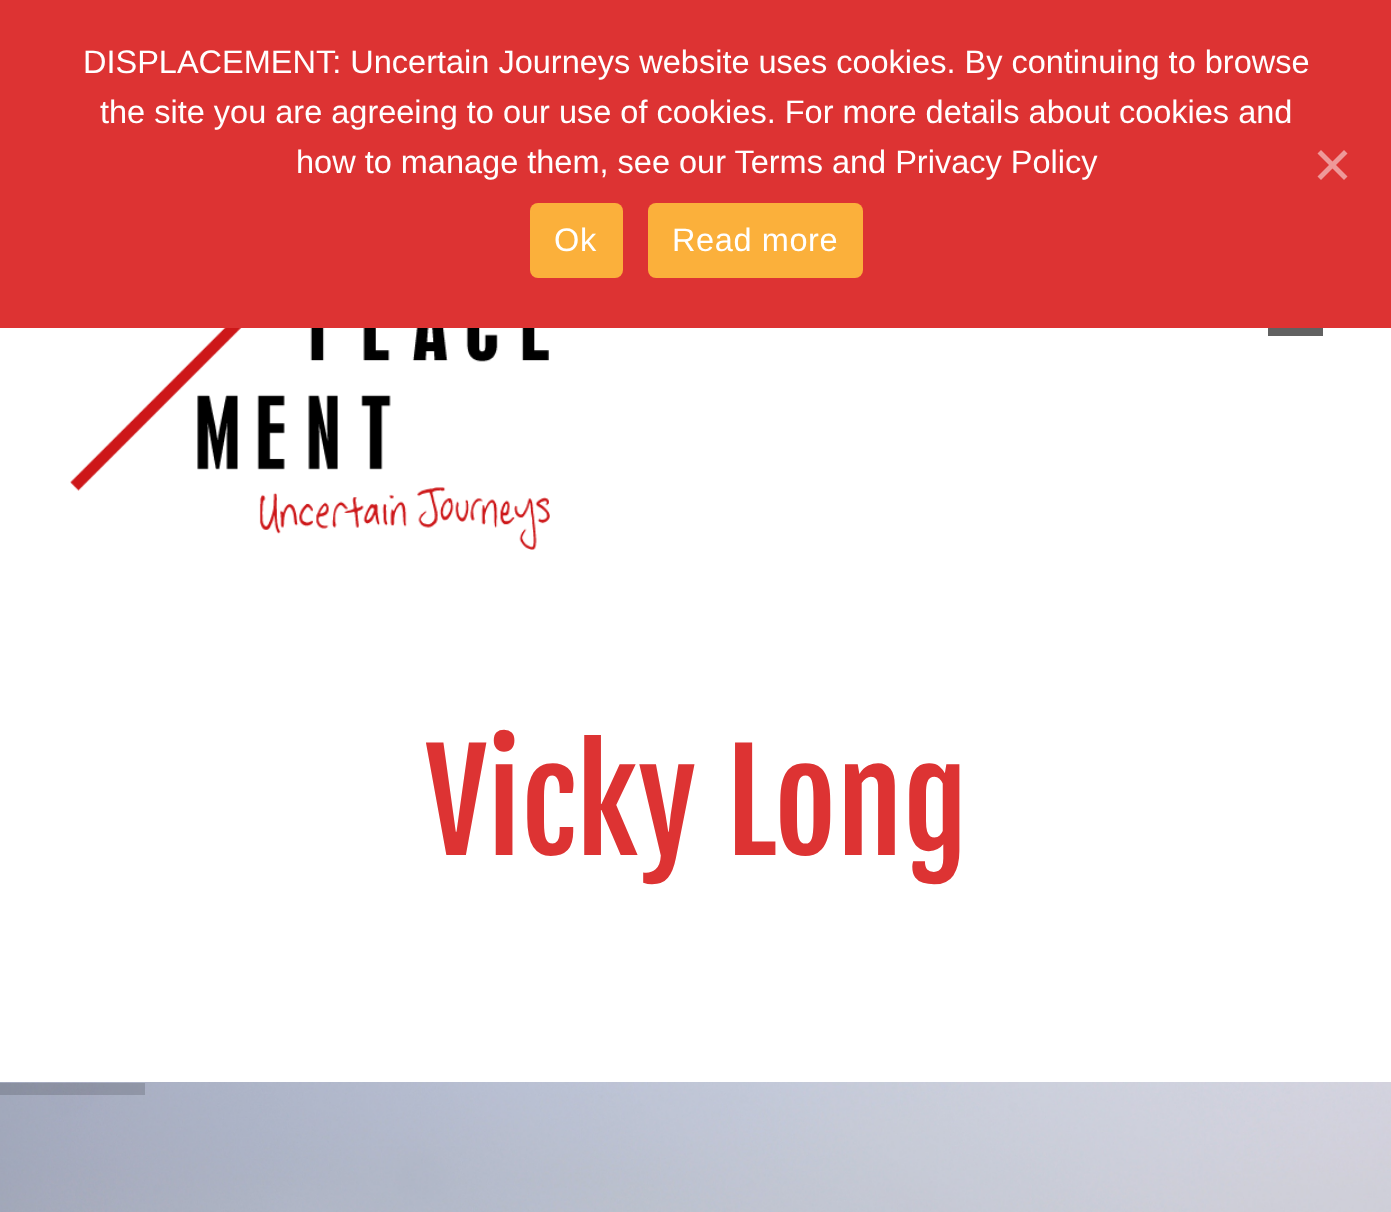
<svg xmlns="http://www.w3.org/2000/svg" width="1391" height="1212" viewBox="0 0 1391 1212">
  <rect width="100%" height="100%" fill="#fff"/>
  <path d="M0 0h1391v328H0z" fill="#d33"/>
  <path d="M1344 150L1347.5 153.5L1321 180L1317.5 176.5Z" fill="#e99"/>
  <path d="M1317.5 153.5L1321 150L1347.5 176.5L1344 180Z" fill="#e99"/>
  <rect x="530" y="203" width="93" height="75" rx="8" fill="#fbb03b"/>
  <rect x="648" y="203" width="215" height="75" rx="8" fill="#fbb03b"/>
  <image x="70" y="328" width="480" height="222" href="img/1.png"/>
  <path d="M1268 328h55v8H1268z" fill="#616161"/>
  <image x="0" y="1082" width="1391" height="130" href="img/2.png"/>
  <path d="M0 1083h145v12H0z" fill="#00000026"/>
  <g font-family="Liberation Sans" font-size="32.5" fill="#fff">
    <text x="83" y="73">DISPLACEMENT: Uncertain Journeys website uses cookies. By continuing to browse</text>
    <text x="100" y="123">the site you are agreeing to our use of cookies. For more details about cookies and</text>
    <text x="296" y="173">how to manage them, see our Terms and Privacy Policy</text>
  </g>
  <g font-family="Liberation Sans" font-size="32.5" letter-spacing="0.6" fill="#fff">
    <text x="554" y="251">Ok</text>
    <text x="672" y="251">Read more</text>
  </g>
  <text x="425" y="855" font-family="Fjalla One" font-size="135" fill="#d33">Vicky Long</text>
</svg>
